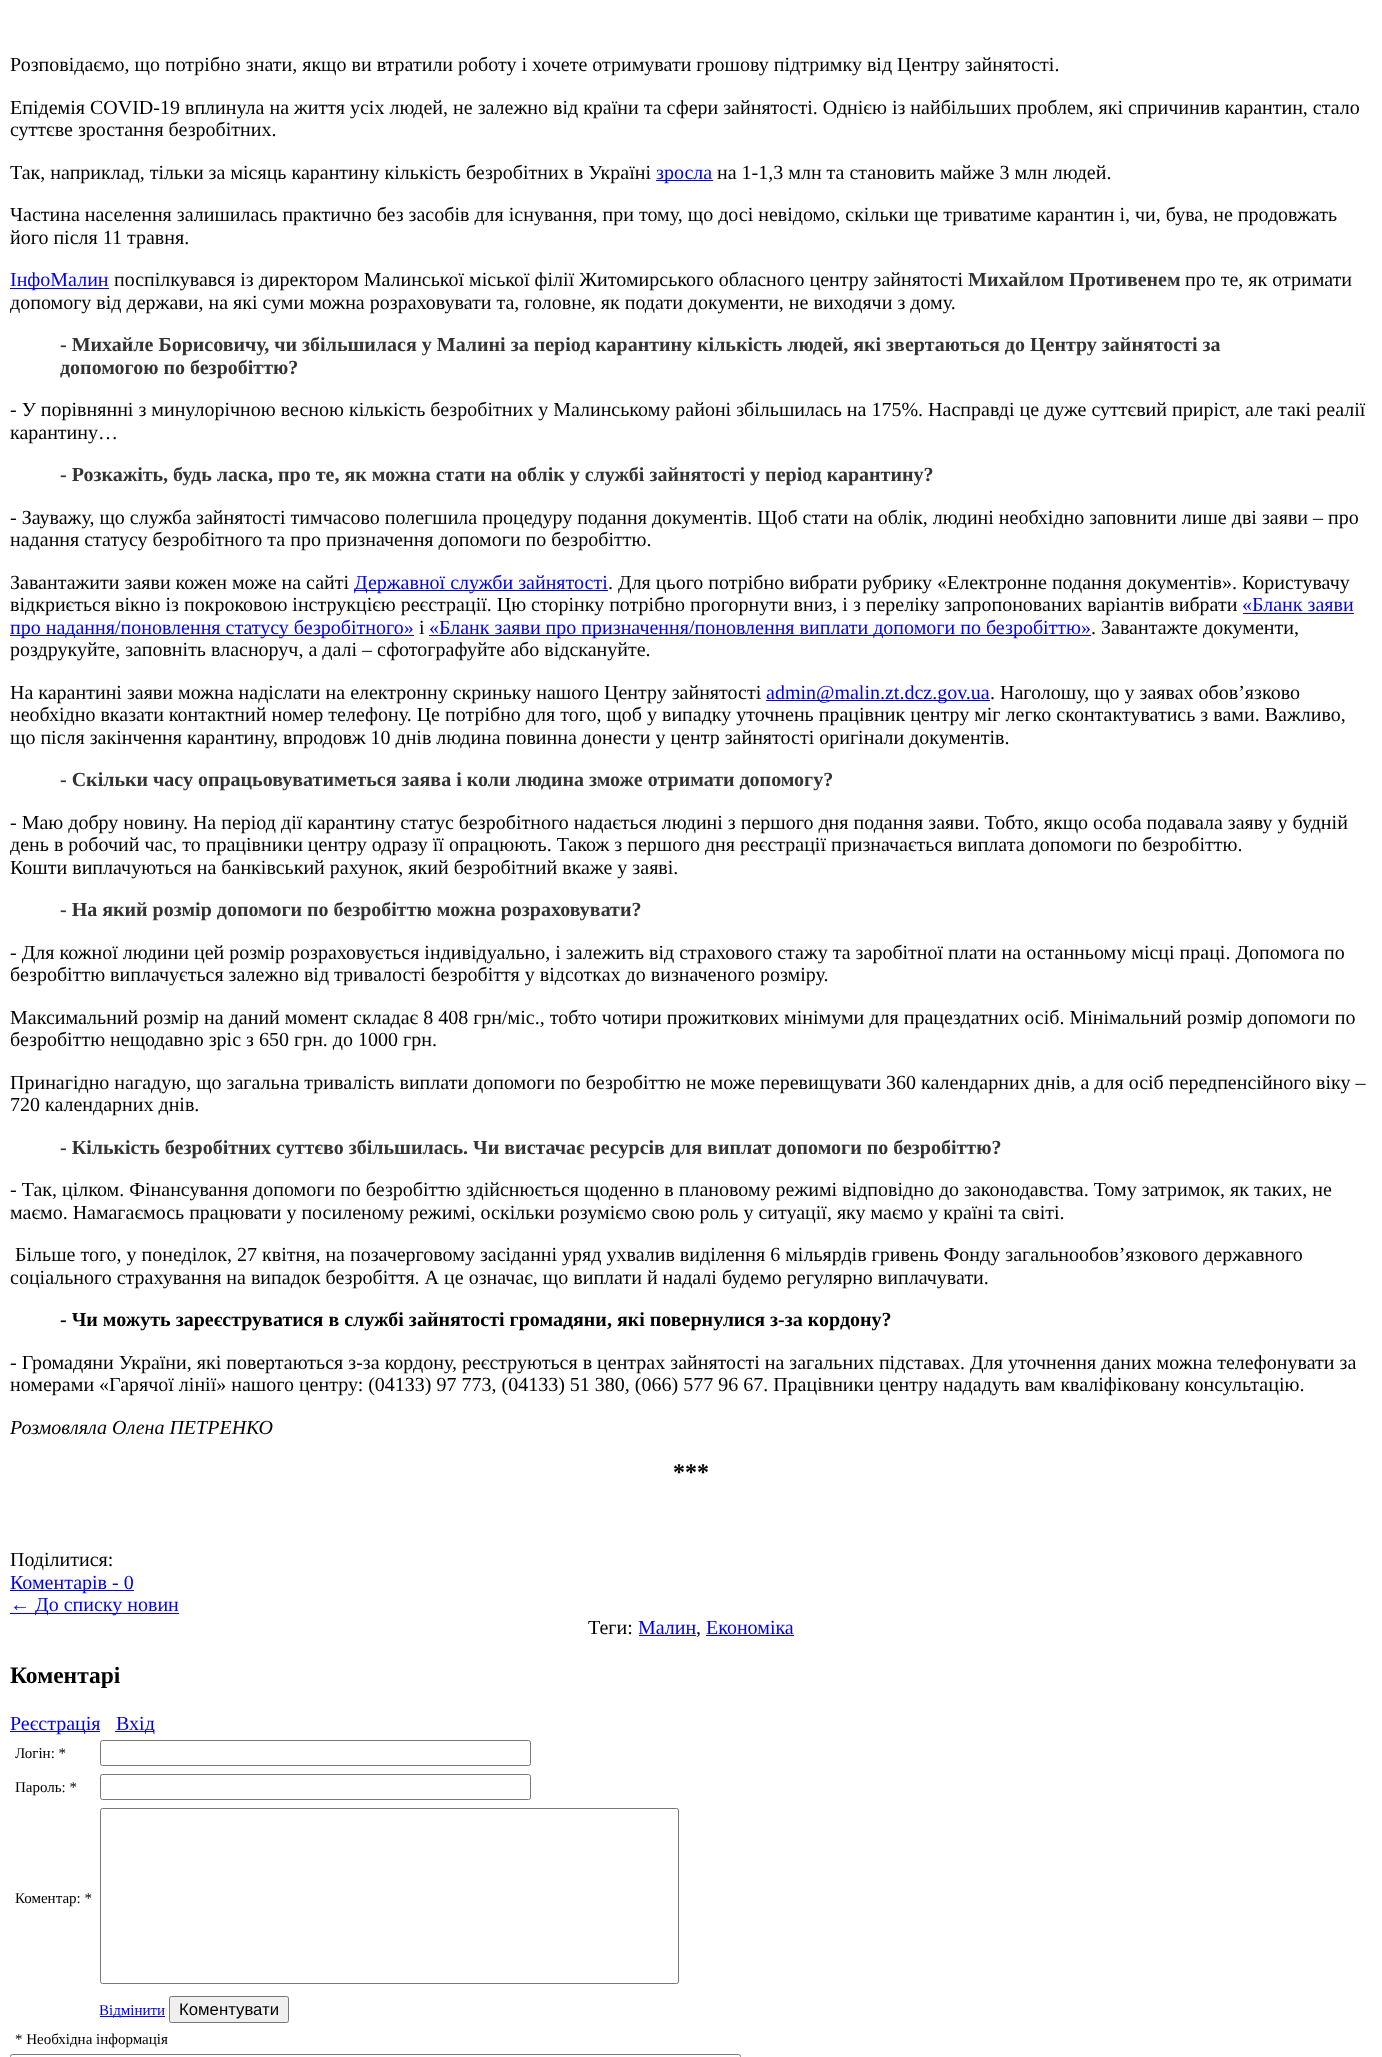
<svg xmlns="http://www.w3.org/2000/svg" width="1382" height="2057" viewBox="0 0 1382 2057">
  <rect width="100%" height="100%" fill="#fff"/>
  <path d="M656 180h57v1H656z" fill="#00e"/>
  <path d="M10 288h99v1H10z" fill="#00e"/>
  <path d="M354 590h254v1H354z" fill="#00e"/>
  <path d="M1243 613h111v1H1243z" fill="#00e"/>
  <path d="M10 635h404v1H10z" fill="#00e"/>
  <path d="M429 635h662v1H429z" fill="#00e"/>
  <path d="M766 700h224v1H766z" fill="#00e"/>
  <path d="M10 1590h124v1H10z" fill="#00e"/>
  <path d="M10 1613h169v1H10z" fill="#00e"/>
  <path d="M639 1635h57v1H639z" fill="#00e"/>
  <path d="M706 1635h88v1H706z" fill="#00e"/>
  <path d="M10 1731h90v1H10z" fill="#00e"/>
  <path d="M115 1731h39v1H115z" fill="#00e"/>
  <rect x="100.5" y="1740.5" width="430" height="25" rx="2" fill="none" stroke="#767676"/>
  <rect x="100.5" y="1774.5" width="430" height="25" rx="2" fill="none" stroke="#767676"/>
  <rect x="100.5" y="1808.5" width="578" height="175" rx="2" fill="none" stroke="#767676"/>
  <path d="M100 2016h65v1H100z" fill="#00e"/>
  <rect x="169.5" y="1996.5" width="119" height="26" rx="2" fill="#efefef" stroke="#767676"/>
  <rect x="10.5" y="2054.5" width="730" height="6" rx="2" fill="none" stroke="#767676"/>
  <g font-family="Liberation Serif" font-size="20" fill="#000">
    <text x="10" y="71">Розповідаємо, що потрібно знати, якщо ви втратили роботу і хочете отримувати грошову підтримку від Центру зайнятості.</text>
    <text x="10" y="114">Епідемія COVID-19 вплинула на життя усіх людей, не залежно від країни та сфери зайнятості. Однією із найбільших проблем, які спричинив карантин, стало</text>
    <text x="10" y="136">суттєве зростання безробітних.</text>
    <text x="10" y="179">Так, наприклад, тільки за місяць карантину кількість безробітних в Україні</text>
  </g>
  <text x="656" y="179" font-family="Liberation Serif" font-size="20" fill="#00e">зросла</text>
  <g font-family="Liberation Serif" font-size="20" fill="#000">
    <text x="717" y="179">на 1-1,3 млн та становить майже 3 млн людей.</text>
    <text x="10" y="221">Частина населення залишилась практично без засобів для існування, при тому, що досі невідомо, скільки ще триватиме карантин і, чи, бува, не продовжать</text>
    <text x="10" y="244">його після 11 травня.</text>
  </g>
  <text x="10" y="286" font-family="Liberation Serif" font-size="20" fill="#00e">ІнфоМалин</text>
  <text x="114" y="286" font-family="Liberation Serif" font-size="20" fill="#000">поспілкувався із директором Малинської міської філії Житомирського обласного центру зайнятості</text>
  <text x="968" y="286" font-family="Liberation Serif" font-size="20" font-weight="bold" fill="#333">Михайлом Противенем</text>
  <g font-family="Liberation Serif" font-size="20" fill="#000">
    <text x="1185" y="286">про те, як отримати</text>
    <text x="10" y="309">допомогу від держави, на які суми можна розраховувати та, головне, як подати документи, не виходячи з дому.</text>
  </g>
  <g font-family="Liberation Serif" font-size="20" font-weight="bold" fill="#333">
    <text x="60" y="351">- Михайле Борисовичу, чи збільшилася у Малині за період карантину кількість людей, які звертаються до Центру зайнятості за</text>
    <text x="60" y="374">допомогою по безробіттю?</text>
  </g>
  <g font-family="Liberation Serif" font-size="20" fill="#000">
    <text x="10" y="416">- У порівнянні з минулорічною весною кількість безробітних у Малинському районі збільшилась на 175%. Насправді це дуже суттєвий приріст, але такі реалії</text>
    <text x="10" y="439">карантину…</text>
  </g>
  <text x="60" y="481" font-family="Liberation Serif" font-size="20" font-weight="bold" fill="#333">- Розкажіть, будь ласка, про те, як можна стати на облік у службі зайнятості у період карантину?</text>
  <g font-family="Liberation Serif" font-size="20" fill="#000">
    <text x="10" y="524">- Зауважу, що служба зайнятості тимчасово полегшила процедуру подання документів. Щоб стати на облік, людині необхідно заповнити лише дві заяви – про</text>
    <text x="10" y="546">надання статусу безробітного та про призначення допомоги по безробіттю.</text>
    <text x="10" y="589">Завантажити заяви кожен може на сайті</text>
  </g>
  <text x="354" y="589" font-family="Liberation Serif" font-size="20" fill="#00e">Державної служби зайнятості</text>
  <g font-family="Liberation Serif" font-size="20" fill="#000">
    <text x="608" y="589">. Для цього потрібно вибрати рубрику «Електронне подання документів». Користувачу</text>
    <text x="10" y="611">відкриється вікно із покроковою інструкцією реєстрації. Цю сторінку потрібно прогорнути вниз, і з переліку запропонованих варіантів вибрати</text>
  </g>
  <g font-family="Liberation Serif" font-size="20" fill="#00e">
    <text x="1242" y="611">«Бланк заяви</text>
    <text x="10" y="634">про надання/поновлення статусу безробітного»</text>
  </g>
  <text x="419" y="634" font-family="Liberation Serif" font-size="20" fill="#000">і</text>
  <text x="429" y="634" font-family="Liberation Serif" font-size="20" fill="#00e">«Бланк заяви про призначення/поновлення виплати допомоги по безробіттю»</text>
  <g font-family="Liberation Serif" font-size="20" fill="#000">
    <text x="1091" y="634">. Завантажте документи,</text>
    <text x="10" y="656">роздрукуйте, заповніть власноруч, а далі – сфотографуйте або відскануйте.</text>
    <text x="10" y="699">На карантині заяви можна надіслати на електронну скриньку нашого Центру зайнятості</text>
  </g>
  <text x="766" y="699" font-family="Liberation Serif" font-size="20" fill="#00e">admin@malin.zt.dcz.gov.ua</text>
  <g font-family="Liberation Serif" font-size="20" fill="#000">
    <text x="990" y="699">. Наголошу, що у заявах обов’язково</text>
    <text x="10" y="721">необхідно вказати контактний номер телефону. Це потрібно для того, щоб у випадку уточнень працівник центру міг легко сконтактуватись з вами. Важливо,</text>
    <text x="10" y="744">що після закінчення карантину, впродовж 10 днів людина повинна донести у центр зайнятості оригінали документів.</text>
  </g>
  <text x="60" y="786" font-family="Liberation Serif" font-size="20" font-weight="bold" fill="#333">- Скільки часу опрацьовуватиметься заява і коли людина зможе отримати допомогу?</text>
  <g font-family="Liberation Serif" font-size="20" fill="#000">
    <text x="10" y="829">- Маю добру новину. На період дії карантину статус безробітного надається людині з першого дня подання заяви. Тобто, якщо особа подавала заяву у будній</text>
    <text x="10" y="851">день в робочий час, то працівники центру одразу її опрацюють. Також з першого дня реєстрації призначається виплата допомоги по безробіттю.</text>
    <text x="10" y="874">Кошти виплачуються на банківський рахунок, який безробітний вкаже у заяві.</text>
  </g>
  <text x="60" y="916" font-family="Liberation Serif" font-size="20" font-weight="bold" fill="#333">- На який розмір допомоги по безробіттю можна розраховувати?</text>
  <g font-family="Liberation Serif" font-size="20" fill="#000">
    <text x="10" y="959">- Для кожної людини цей розмір розраховується індивідуально, і залежить від страхового стажу та заробітної плати на останньому місці праці. Допомога по</text>
    <text x="10" y="981">безробіттю виплачується залежно від тривалості безробіття у відсотках до визначеного розміру.</text>
    <text x="10" y="1024">Максимальний розмір на даний момент складає 8 408 грн/міс., тобто чотири прожиткових мінімуми для працездатних осіб. Мінімальний розмір допомоги по</text>
    <text x="10" y="1046">безробіттю нещодавно зріс з 650 грн. до 1000 грн.</text>
    <text x="10" y="1089">Принагідно нагадую, що загальна тривалість виплати допомоги по безробіттю не може перевищувати 360 календарних днів, а для осіб передпенсійного віку –</text>
    <text x="10" y="1111">720 календарних днів.</text>
  </g>
  <text x="60" y="1154" font-family="Liberation Serif" font-size="20" font-weight="bold" fill="#333">- Кількість безробітних суттєво збільшилась. Чи вистачає ресурсів для виплат допомоги по безробіттю?</text>
  <g font-family="Liberation Serif" font-size="20" fill="#000">
    <text x="10" y="1196">- Так, цілком. Фінансування допомоги по безробіттю здійснюється щоденно в плановому режимі відповідно до законодавства. Тому затримок, як таких, не</text>
    <text x="10" y="1219">маємо. Намагаємось працювати у посиленому режимі, оскільки розуміємо свою роль у ситуації, яку маємо у країні та світі.</text>
    <text x="15" y="1261">Більше того, у понеділок, 27 квітня, на позачерговому засіданні уряд ухвалив виділення 6 мільярдів гривень Фонду загальнообов’язкового державного</text>
    <text x="10" y="1284">соціального страхування на випадок безробіття. А це означає, що виплати й надалі будемо регулярно виплачувати.</text>
  </g>
  <text x="60" y="1326" font-family="Liberation Serif" font-size="20" font-weight="bold" fill="#000">- Чи можуть зареєструватися в службі зайнятості громадяни, які повернулися з-за кордону?</text>
  <g font-family="Liberation Serif" font-size="20" fill="#000">
    <text x="10" y="1369">- Громадяни України, які повертаються з-за кордону, реєструються в центрах зайнятості на загальних підставах. Для уточнення даних можна телефонувати за</text>
    <text x="10" y="1391">номерами «Гарячої лінії» нашого центру: (04133) 97 773, (04133) 51 380, (066) 577 96 67. Працівники центру нададуть вам кваліфіковану консультацію.</text>
  </g>
  <text x="10" y="1434" font-family="Liberation Serif" font-size="20" font-style="italic" fill="#000">Розмовляла Олена ПЕТРЕНКО</text>
  <text x="673" y="1480" font-family="Liberation Serif" font-size="24" font-weight="bold" fill="#000">***</text>
  <text x="10" y="1566" font-family="Liberation Serif" font-size="20" fill="#000">Поділитися:</text>
  <g font-family="Liberation Serif" font-size="20" fill="#00e">
    <text x="10" y="1589">Коментарів - 0</text>
    <text x="10" y="1611">← До списку новин</text>
  </g>
  <text x="588" y="1634" font-family="Liberation Serif" font-size="20" fill="#000">Теги:</text>
  <text x="638" y="1634" font-family="Liberation Serif" font-size="20" fill="#00e">Малин</text>
  <text x="696" y="1634" font-family="Liberation Serif" font-size="20" fill="#000">,</text>
  <text x="706" y="1634" font-family="Liberation Serif" font-size="20" fill="#00e">Економіка</text>
  <text x="10" y="1683" font-family="Liberation Serif" font-size="23.5" font-weight="bold" fill="#000">Коментарі</text>
  <g font-family="Liberation Serif" font-size="20" fill="#00e">
    <text x="10" y="1730">Реєстрація</text>
    <text x="116" y="1730">Вхід</text>
  </g>
  <g font-family="Liberation Serif" font-size="15" fill="#000">
    <text x="15" y="1758">Логін: *</text>
    <text x="15" y="1792">Пароль: *</text>
    <text x="15" y="1903">Коментар: *</text>
  </g>
  <text x="99" y="2015" font-family="Liberation Serif" font-size="15" fill="#00e">Відмінити</text>
  <text x="179" y="2015" font-family="Liberation Sans" font-size="16.75" fill="#000">Коментувати</text>
  <text x="15" y="2044" font-family="Liberation Serif" font-size="15" fill="#000">* Необхідна інформація</text>
</svg>
